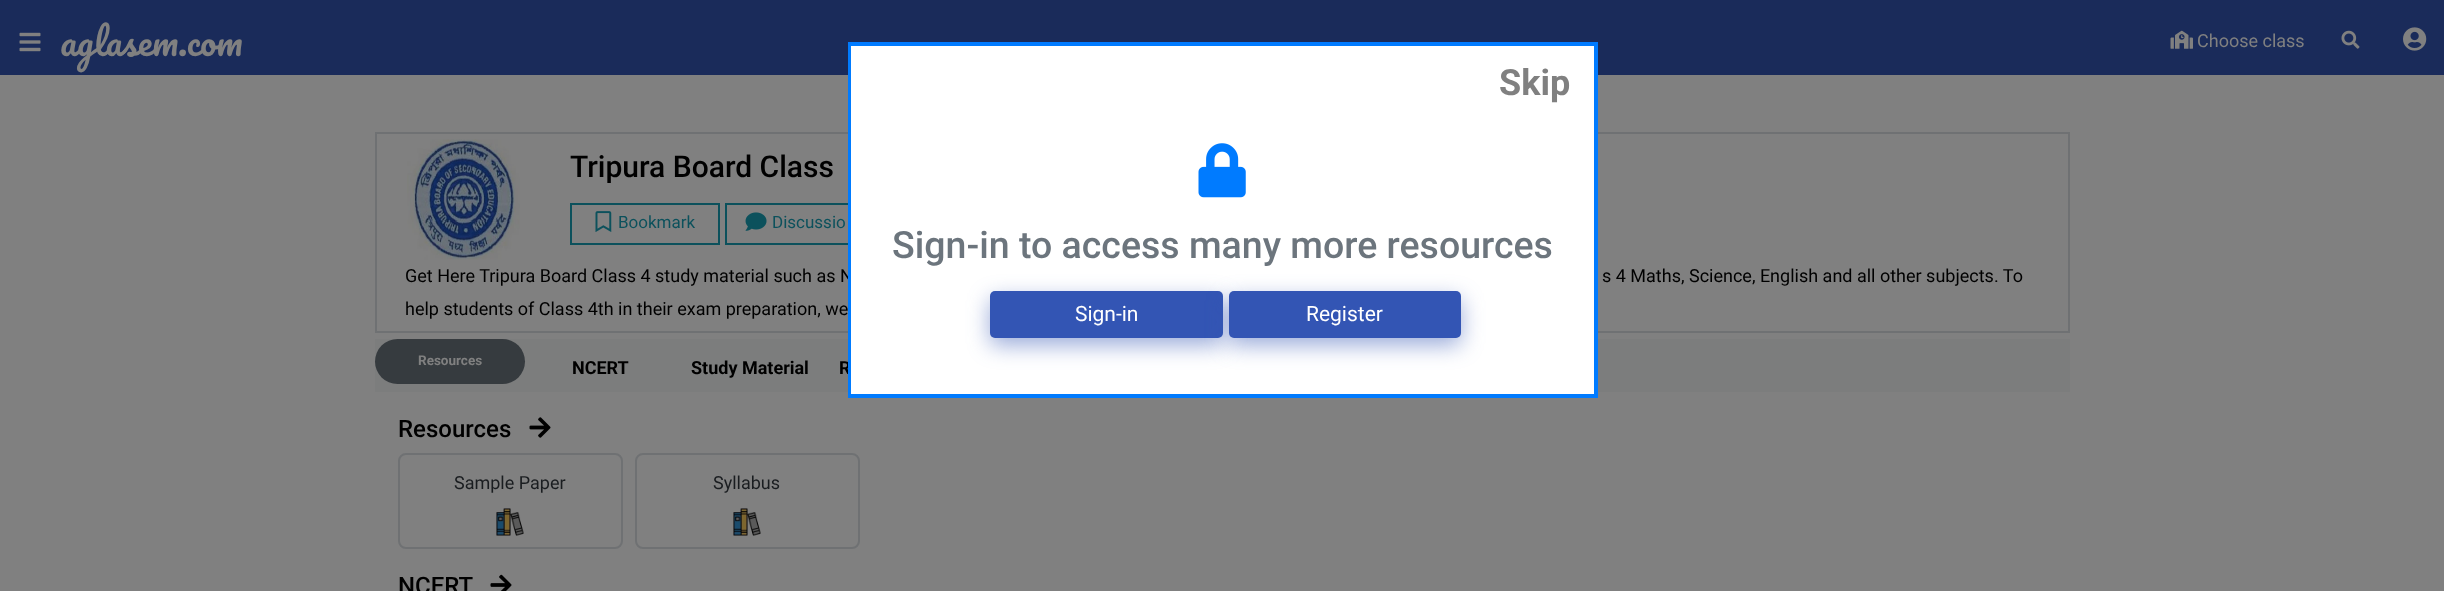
<svg xmlns="http://www.w3.org/2000/svg" width="2444" height="591" viewBox="0 0 2444 591">
  <rect width="100%" height="100%" fill="#1a2b5a"/>
  <path d="M0 75h2444v516H0z" fill="#808080"/>
  <image x="19" y="32" width="22" height="20" href="img/1.png"/>
  <image x="2170" y="30" width="23" height="19" href="img/2.png"/>
  <image x="2341" y="30" width="19" height="19" href="img/3.png"/>
  <image x="2403" y="27" width="24" height="24" href="img/4.png"/>
  <path d="M376 133h1693v199H376z" fill="none" stroke="#6f7173" stroke-width="2"/>
  <image x="407" y="139" width="113" height="121" href="img/6.png"/>
  <path d="M571 204h148v40H571z" fill="none" stroke="#0c515c" stroke-width="2"/>
  <image x="595" y="211" width="17" height="21" href="img/7.png"/>
  <path d="M726 204h148v40H726z" fill="none" stroke="#0c515c" stroke-width="2"/>
  <image x="745" y="212" width="22" height="19" href="img/8.png"/>
  <path d="M375 339h1695v53H375z" fill="#7c7d7d"/>
  <rect x="375" y="339" width="150" height="45" rx="22.5" fill="#363b3f"/>
  <image x="529" y="417" width="22" height="21" href="img/9.png"/>
  <rect x="399" y="454" width="223" height="94" rx="7" fill="none" stroke="#6f7173" stroke-width="2"/>
  <image x="496" y="508" width="28" height="28" href="img/10.png"/>
  <rect x="636" y="454" width="223" height="94" rx="7" fill="none" stroke="#6f7173" stroke-width="2"/>
  <image x="733" y="508" width="28" height="28" href="img/10.png"/>
  <image x="490" y="574" width="22" height="17" href="img/11.png"/>
  <text x="60" y="56" font-family="Pacifico" font-size="36" fill="#808080">aglasem.com</text>
  <text x="2197" y="47" font-family="Roboto" font-size="18" fill="#808080">Choose class</text>
  <text x="570" y="177" font-family="Roboto" font-size="30" font-weight="500" fill="#000">Tripura Board Class</text>
  <g font-family="Roboto" font-size="17" fill="#0c515c">
    <text x="618" y="228">Bookmark</text>
    <text x="772" y="228">Discussio</text>
  </g>
  <g font-family="Roboto" font-size="18" fill="#000">
    <text x="405" y="282">Get Here Tripura Board Class 4 study material such as N</text>
    <text x="1602" y="282">s 4 Maths, Science, English and all other subjects. To</text>
    <text x="405" y="315">help students of Class 4th in their exam preparation, we</text>
  </g>
  <text x="418" y="365" font-family="Roboto" font-size="13.5" font-weight="bold" fill="#808080">Resources</text>
  <g font-family="Roboto" font-size="18" font-weight="bold" fill="#000">
    <text x="572" y="374">NCERT</text>
    <text x="691" y="374">Study Material</text>
    <text x="839" y="374">R</text>
  </g>
  <path d="M849 43h748v354H849z" fill="none" stroke="#007bff" stroke-width="2"/>
  <path d="M850 45h745v350H850z" fill="#fff" stroke="#007bff" stroke-width="2"/>
  <rect x="990" y="299" width="233" height="46" rx="5" fill="#3355b480" filter="blur(11px)"/>
  <rect x="990" y="291" width="233" height="47" rx="5" fill="#3355b4"/>
  <rect x="1229" y="299" width="232" height="46" rx="5" fill="#3355b480" filter="blur(11px)"/>
  <rect x="1229" y="291" width="232" height="47" rx="5" fill="#3355b4"/>
  <g font-family="Roboto" font-size="21" fill="#fff">
    <text x="1306" y="321">Register</text>
    <text x="1075" y="321">Sign-in</text>
  </g>
  <text x="892" y="258" font-family="Roboto" font-size="37.5" font-weight="500" fill="#6c757d">Sign-in to access many more resources</text>
  <image x="1198" y="143" width="48" height="55" href="img/5.png"/>
  <text x="1499" y="95" font-family="Roboto" font-size="36" font-weight="bold" fill="#808080">Skip</text>
  <text x="398" y="437" font-family="Roboto" font-size="24" font-weight="500" fill="#000">Resources</text>
  <g font-family="Roboto" font-size="18" fill="#1a1d20">
    <text x="454" y="489">Sample Paper</text>
    <text x="713" y="489">Syllabus</text>
  </g>
  <text x="398" y="594" font-family="Roboto" font-size="24" font-weight="500" fill="#000">NCERT</text>
</svg>
